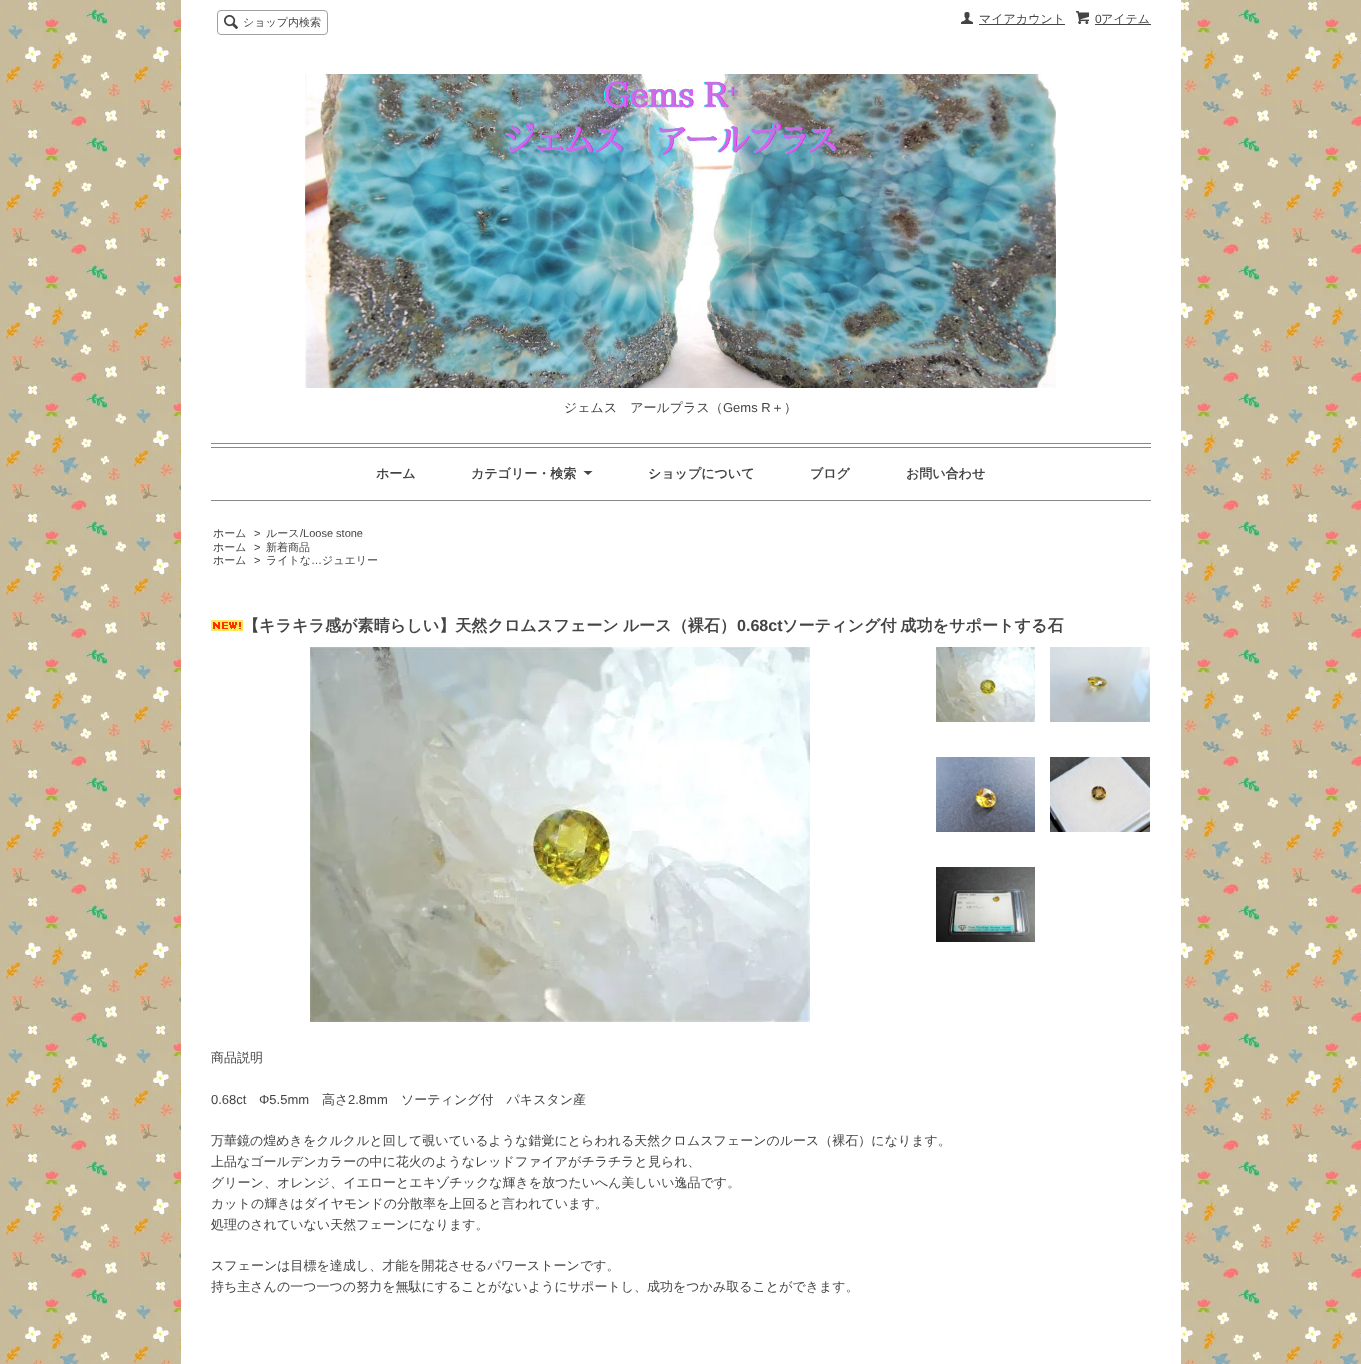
<svg xmlns="http://www.w3.org/2000/svg" width="1361" height="1364" viewBox="0 0 1361 1364">
  <rect width="100%" height="100%" fill="#fff"/>
  <image x="0" y="0" width="1361" height="1364" href="img/1.png"/>
  <path d="M181 0h1000v1364H181z" fill="#fff"/>
  <rect x="217.5" y="10.5" width="110" height="24" rx="3.5" fill="none" stroke="#a0a0a0"/>
  <image x="224" y="15" width="14" height="14" href="img/2.png"/>
  <image x="961" y="12" width="12" height="12" href="img/3.png"/>
  <path d="M979 24h86v1H979z" fill="#444"/>
  <image x="1076" y="11" width="13" height="13" href="img/4.png"/>
  <path d="M1095 24h56v1H1095z" fill="#444"/>
  <path d="M211 443h940v1H211z" fill="#888"/>
  <image x="305" y="74" width="751" height="314" href="img/5.png"/>
  <path d="M211 447h940v1H211z" fill="#888"/>
  <path d="M211 500h940v1H211z" fill="#888"/>
  <image x="583" y="471" width="10" height="4" href="img/6.png"/>
  <image x="211" y="620" width="32" height="11" href="img/7.png"/>
  <image x="310" y="647" width="500" height="375" href="img/8.png"/>
  <image x="936" y="647" width="99" height="75" href="img/9.png"/>
  <image x="1050" y="647" width="100" height="75" href="img/10.png"/>
  <image x="936" y="757" width="99" height="75" href="img/11.png"/>
  <image x="1050" y="757" width="100" height="75" href="img/12.png"/>
  <image x="936" y="867" width="99" height="75" href="img/13.png"/>
  <text x="243" y="26" font-family="WenQuanYi Zen Hei" font-size="11" font-weight="500" fill="#444">ショップ内検索</text>
  <text x="979" y="23" font-family="WenQuanYi Zen Hei" font-size="12" font-weight="500" fill="#444">マイアカウント</text>
  <text x="1095" y="23" font-family="Liberation Sans" font-size="12" fill="#444">0</text>
  <text x="1101" y="23" font-family="WenQuanYi Zen Hei" font-size="12" font-weight="500" fill="#444">アイテム</text>
  <text x="564" y="412" font-family="WenQuanYi Zen Hei" font-size="13" font-weight="500" fill="#444">ジェムス　アールプラス（</text>
  <text x="723" y="412" font-family="Liberation Sans" font-size="13" fill="#444">Gems R</text>
  <text x="771" y="412" font-family="WenQuanYi Zen Hei" font-size="13" font-weight="500" fill="#444">＋）</text>
  <g font-family="WenQuanYi Zen Hei" font-size="13" font-weight="bold" fill="#444">
    <text x="376" y="478">ホーム</text>
    <text x="471" y="478">カテゴリー・検索</text>
    <text x="648" y="478">ショップについて</text>
    <text x="810" y="478">ブログ</text>
    <text x="906" y="478">お問い合わせ</text>
  </g>
  <text x="213" y="537" font-family="WenQuanYi Zen Hei" font-size="11" font-weight="500" fill="#444">ホーム</text>
  <text x="254" y="537" font-family="Liberation Sans" font-size="11" fill="#444">&gt;</text>
  <text x="266" y="537" font-family="WenQuanYi Zen Hei" font-size="11" font-weight="500" fill="#444">ルース</text>
  <text x="300" y="537" font-family="Liberation Sans" font-size="11" fill="#444">/Loose stone</text>
  <text x="213" y="551" font-family="WenQuanYi Zen Hei" font-size="11" font-weight="500" fill="#444">ホーム</text>
  <text x="254" y="551" font-family="Liberation Sans" font-size="11" fill="#444">&gt;</text>
  <g font-family="WenQuanYi Zen Hei" font-size="11" font-weight="500" fill="#444">
    <text x="266" y="551">新着商品</text>
    <text x="213" y="564">ホーム</text>
  </g>
  <text x="254" y="564" font-family="Liberation Sans" font-size="11" fill="#444">&gt;</text>
  <text x="266" y="564" font-family="WenQuanYi Zen Hei" font-size="11" font-weight="500" fill="#444">ライトな</text>
  <text x="311" y="564" font-family="Liberation Sans" font-size="11" fill="#444">…</text>
  <text x="322" y="564" font-family="WenQuanYi Zen Hei" font-size="11" font-weight="500" fill="#444">ジュエリー</text>
  <text x="243" y="631" word-spacing="-1" font-family="WenQuanYi Zen Hei" font-size="16.1" font-weight="bold" fill="#444">【キラキラ感が素晴らしい】天然クロムスフェーン ルース（裸石）</text>
  <text x="737" y="631" font-family="Liberation Sans" font-size="16.1" font-weight="bold" fill="#444">0.68ct</text>
  <text x="782" y="631" word-spacing="-1" font-family="WenQuanYi Zen Hei" font-size="16.1" font-weight="bold" fill="#444">ソーティング付 成功をサポートする石</text>
  <text x="211" y="1062" font-family="WenQuanYi Zen Hei" font-size="13" font-weight="500" fill="#444">商品説明</text>
  <g font-family="Liberation Sans" font-size="13" fill="#444">
    <text x="211" y="1104">0.68ct</text>
    <text x="259" y="1104">Φ5.5mm</text>
  </g>
  <text x="322" y="1104" font-family="WenQuanYi Zen Hei" font-size="13" font-weight="500" fill="#444">高さ</text>
  <text x="348" y="1104" font-family="Liberation Sans" font-size="13" fill="#444">2.8mm</text>
  <g font-family="WenQuanYi Zen Hei" font-size="13" font-weight="500" fill="#444">
    <text x="401" y="1104">ソーティング付　パキスタン産</text>
    <text x="211" y="1145">万華鏡の煌めきをクルクルと回して覗いているような錯覚にとらわれる天然クロムスフェーンのルース（裸石）になります。</text>
    <text x="211" y="1166">上品なゴールデンカラーの中に花火のようなレッドファイアがチラチラと見られ、</text>
    <text x="211" y="1187">グリーン、オレンジ、イエローとエキゾチックな輝きを放つたいへん美しいい逸品です。</text>
    <text x="211" y="1208">カットの輝きはダイヤモンドの分散率を上回ると言われています。</text>
    <text x="211" y="1229">処理のされていない天然フェーンになります。</text>
    <text x="211" y="1270">スフェーンは目標を達成し、才能を開花させるパワーストーンです。</text>
    <text x="211" y="1291">持ち主さんの一つ一つの努力を無駄にすることがないようにサポートし、成功をつかみ取ることができます。</text>
  </g>
</svg>
